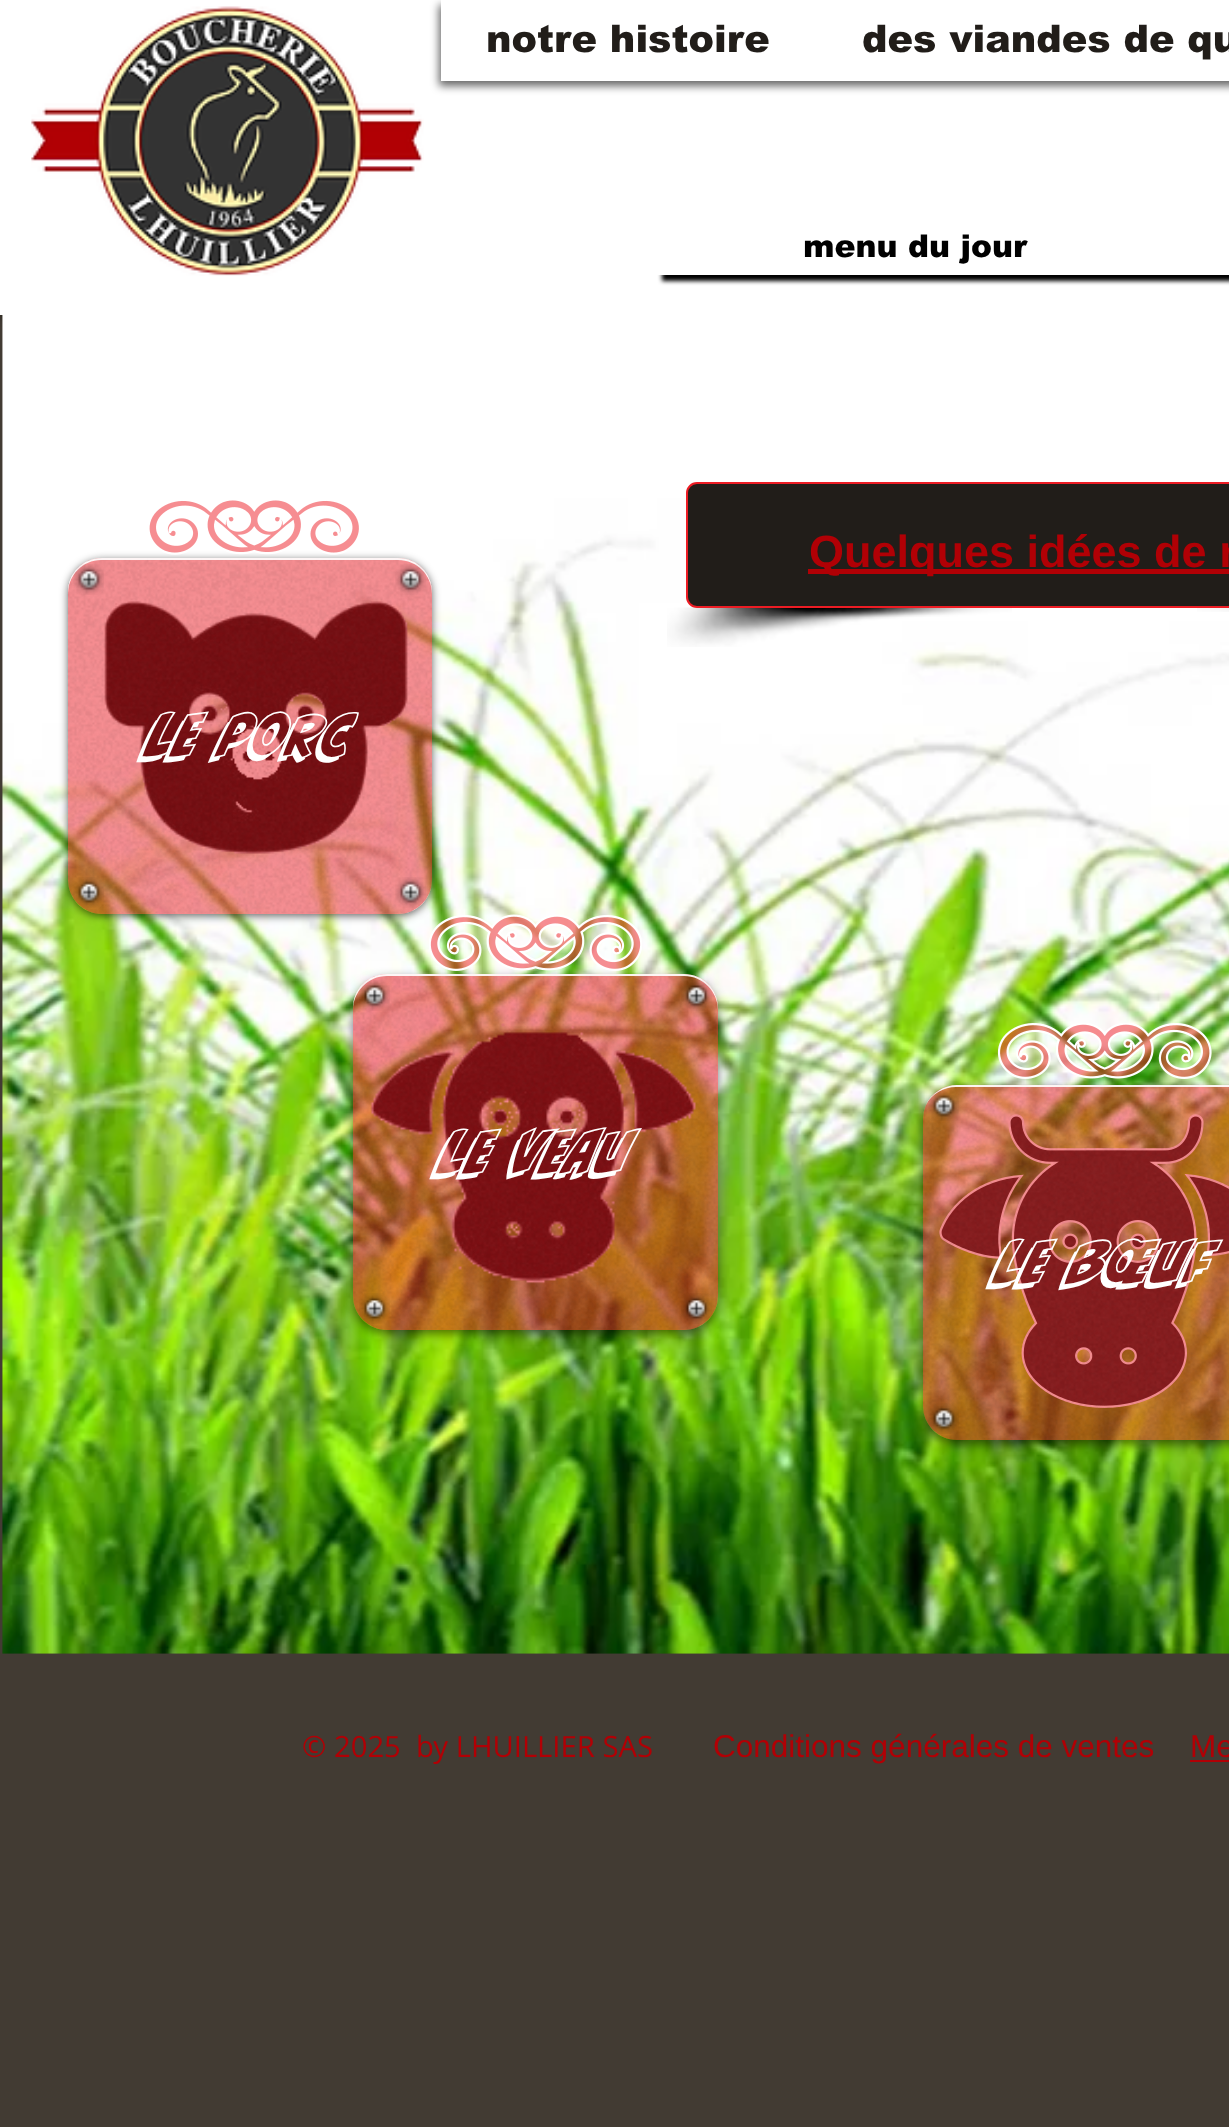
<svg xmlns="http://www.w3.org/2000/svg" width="1229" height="2127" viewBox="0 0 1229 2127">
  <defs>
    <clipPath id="clip1"><path d="M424 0H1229V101H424ZM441 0H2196V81H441Z" clip-rule="evenodd"/></clipPath>
    <clipPath id="clip2"><path d="M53 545H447V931H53ZM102 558H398C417 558 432 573 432 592V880C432 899 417 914 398 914H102C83 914 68 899 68 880V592C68 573 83 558 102 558Z" clip-rule="evenodd"/></clipPath>
    <clipPath id="clip3"><path d="M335 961H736V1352H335ZM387 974H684C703 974 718 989 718 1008V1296C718 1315 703 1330 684 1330H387C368 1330 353 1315 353 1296V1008C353 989 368 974 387 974Z" clip-rule="evenodd"/></clipPath>
    <clipPath id="clip4"><path d="M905 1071H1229V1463H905ZM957 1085H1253C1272 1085 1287 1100 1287 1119V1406C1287 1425 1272 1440 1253 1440H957C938 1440 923 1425 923 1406V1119C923 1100 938 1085 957 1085Z" clip-rule="evenodd"/></clipPath>
  </defs>
  <rect width="100%" height="100%" fill="#423b33"/>
  <path d="M0 0h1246v315H0z" fill="#000000b3" filter="blur(5.5px)"/>
  <path d="M0 0h1229v315H0z" fill="#fff"/>
  <image x="31" y="6" width="393" height="270" href="img/1.png"/>
  <g clip-path="url(#clip1)">
    <path d="M439 5h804v81H439z" fill="#00000099" filter="blur(4.5px)"/>
  </g>
  <path d="M662 223h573v58H662z" fill="#000" filter="blur(2px)"/>
  <path d="M657 218h572v57H657z" fill="#fff"/>
  <image x="2" y="315" width="1227" height="1339" href="img/2.png"/>
  <image x="104" y="601" width="304" height="253" href="img/6.png"/>
  <g clip-path="url(#clip2)">
    <rect x="68" y="560" width="364" height="356" rx="34" fill="#00000099" filter="blur(4.5px)"/>
  </g>
  <image x="149" y="500" width="210" height="55" href="img/3.png"/>
  <image x="667" y="607" width="345" height="40" href="img/4.png"/>
  <rect x="687" y="483" width="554" height="124" rx="10" fill="#211d19" stroke="#ed1c24" stroke-width="2"/>
  <image x="1197" y="608" width="32" height="4" href="img/5.png"/>
  <path d="M808 569h421v5H808z" fill="#b10005"/>
  <rect x="68" y="558" width="364" height="356" rx="34" fill="#ed1c2480"/>
  <image x="67" y="558" width="365" height="356" href="img/7.png"/>
  <path d="M101 560H398C417 560 432 575 432 594V592C432 573 417 558 398 558H102C83 558 68 573 68 592V594C68 575 83 560 101 560Z" fill="#ffffffeb"/>
  <image x="73" y="564" width="31" height="31" href="img/8.png"/>
  <image x="395" y="564" width="31" height="31" href="img/9.png"/>
  <image x="73" y="877" width="31" height="31" href="img/10.png"/>
  <image x="395" y="877" width="31" height="31" href="img/11.png"/>
  <image x="370" y="1023" width="326" height="261" href="img/13.png"/>
  <g clip-path="url(#clip3)">
    <rect x="353" y="979" width="365" height="355" rx="34" fill="#00000087" filter="blur(5.5px)"/>
  </g>
  <image x="429" y="914" width="213" height="57" href="img/12.png"/>
  <image x="939" y="1114" width="290" height="294" href="img/20.png"/>
  <g clip-path="url(#clip4)">
    <rect x="923" y="1089" width="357" height="356" rx="34" fill="#00000087" filter="blur(5.5px)"/>
  </g>
  <image x="997" y="1023" width="215" height="56" href="img/14.png"/>
  <rect x="353" y="974" width="365" height="356" rx="34" fill="#ed1c2487"/>
  <image x="353" y="974" width="365" height="356" href="img/15.png"/>
  <path d="M387 976H684C703 976 718 992 718 1010V1008C718 989 703 974 684 974H387C368 974 353 989 353 1008V1010C353 992 368 976 387 976Z" fill="#ffffffeb"/>
  <image x="359" y="980" width="31" height="31" href="img/16.png"/>
  <image x="681" y="980" width="31" height="31" href="img/17.png"/>
  <image x="359" y="1293" width="31" height="31" href="img/18.png"/>
  <image x="681" y="1293" width="31" height="31" href="img/19.png"/>
  <rect x="923" y="1085" width="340" height="355" rx="34" fill="#ed1c2480"/>
  <image x="922" y="1084" width="307" height="356" href="img/21.png"/>
  <path d="M956 1087H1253C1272 1087 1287 1102 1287 1120V1119C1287 1100 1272 1085 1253 1085H957C944 1085 932 1093 926 1104C932 1094 944 1087 956 1087Z" fill="#ffffffeb"/>
  <image x="928" y="1090" width="31" height="31" href="img/22.png"/>
  <image x="928" y="1403" width="31" height="31" href="img/23.png"/>
  <path d="M1190 1760h39v2H1190z" fill="#b10005"/>
  <g font-family="arial" font-size="38.25" font-weight="900" fill="#211d19">
    <text x="486" y="52">notre histoire</text>
    <text x="862" y="52">des viandes de qu</text>
  </g>
  <text x="803" y="257" font-family="arial" font-size="31.5" font-weight="900" fill="#000">menu du jour</text>
  <text x="809" y="567" font-family="Liberation Sans" font-size="45" font-weight="bold" fill="#b10005">Quelques idées de r</text>
  <g font-family="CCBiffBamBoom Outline" font-size="54" fill="#fff">
    <text x="148" y="756">Le porc</text>
    <text x="441" y="1173">Le veau</text>
    <text x="997" y="1283">Le bœuf</text>
  </g>
  <text x="302" y="1757" font-family="Open Sans" font-size="29.25" fill="#b10005" xml:space="preserve">© 2025  by LHUILLIER SAS</text>
  <g font-family="Liberation Sans" font-size="31.5" fill="#b10005">
    <text x="713" y="1757">Conditions générales de ventes</text>
    <text x="1190" y="1757">Me</text>
  </g>
</svg>
